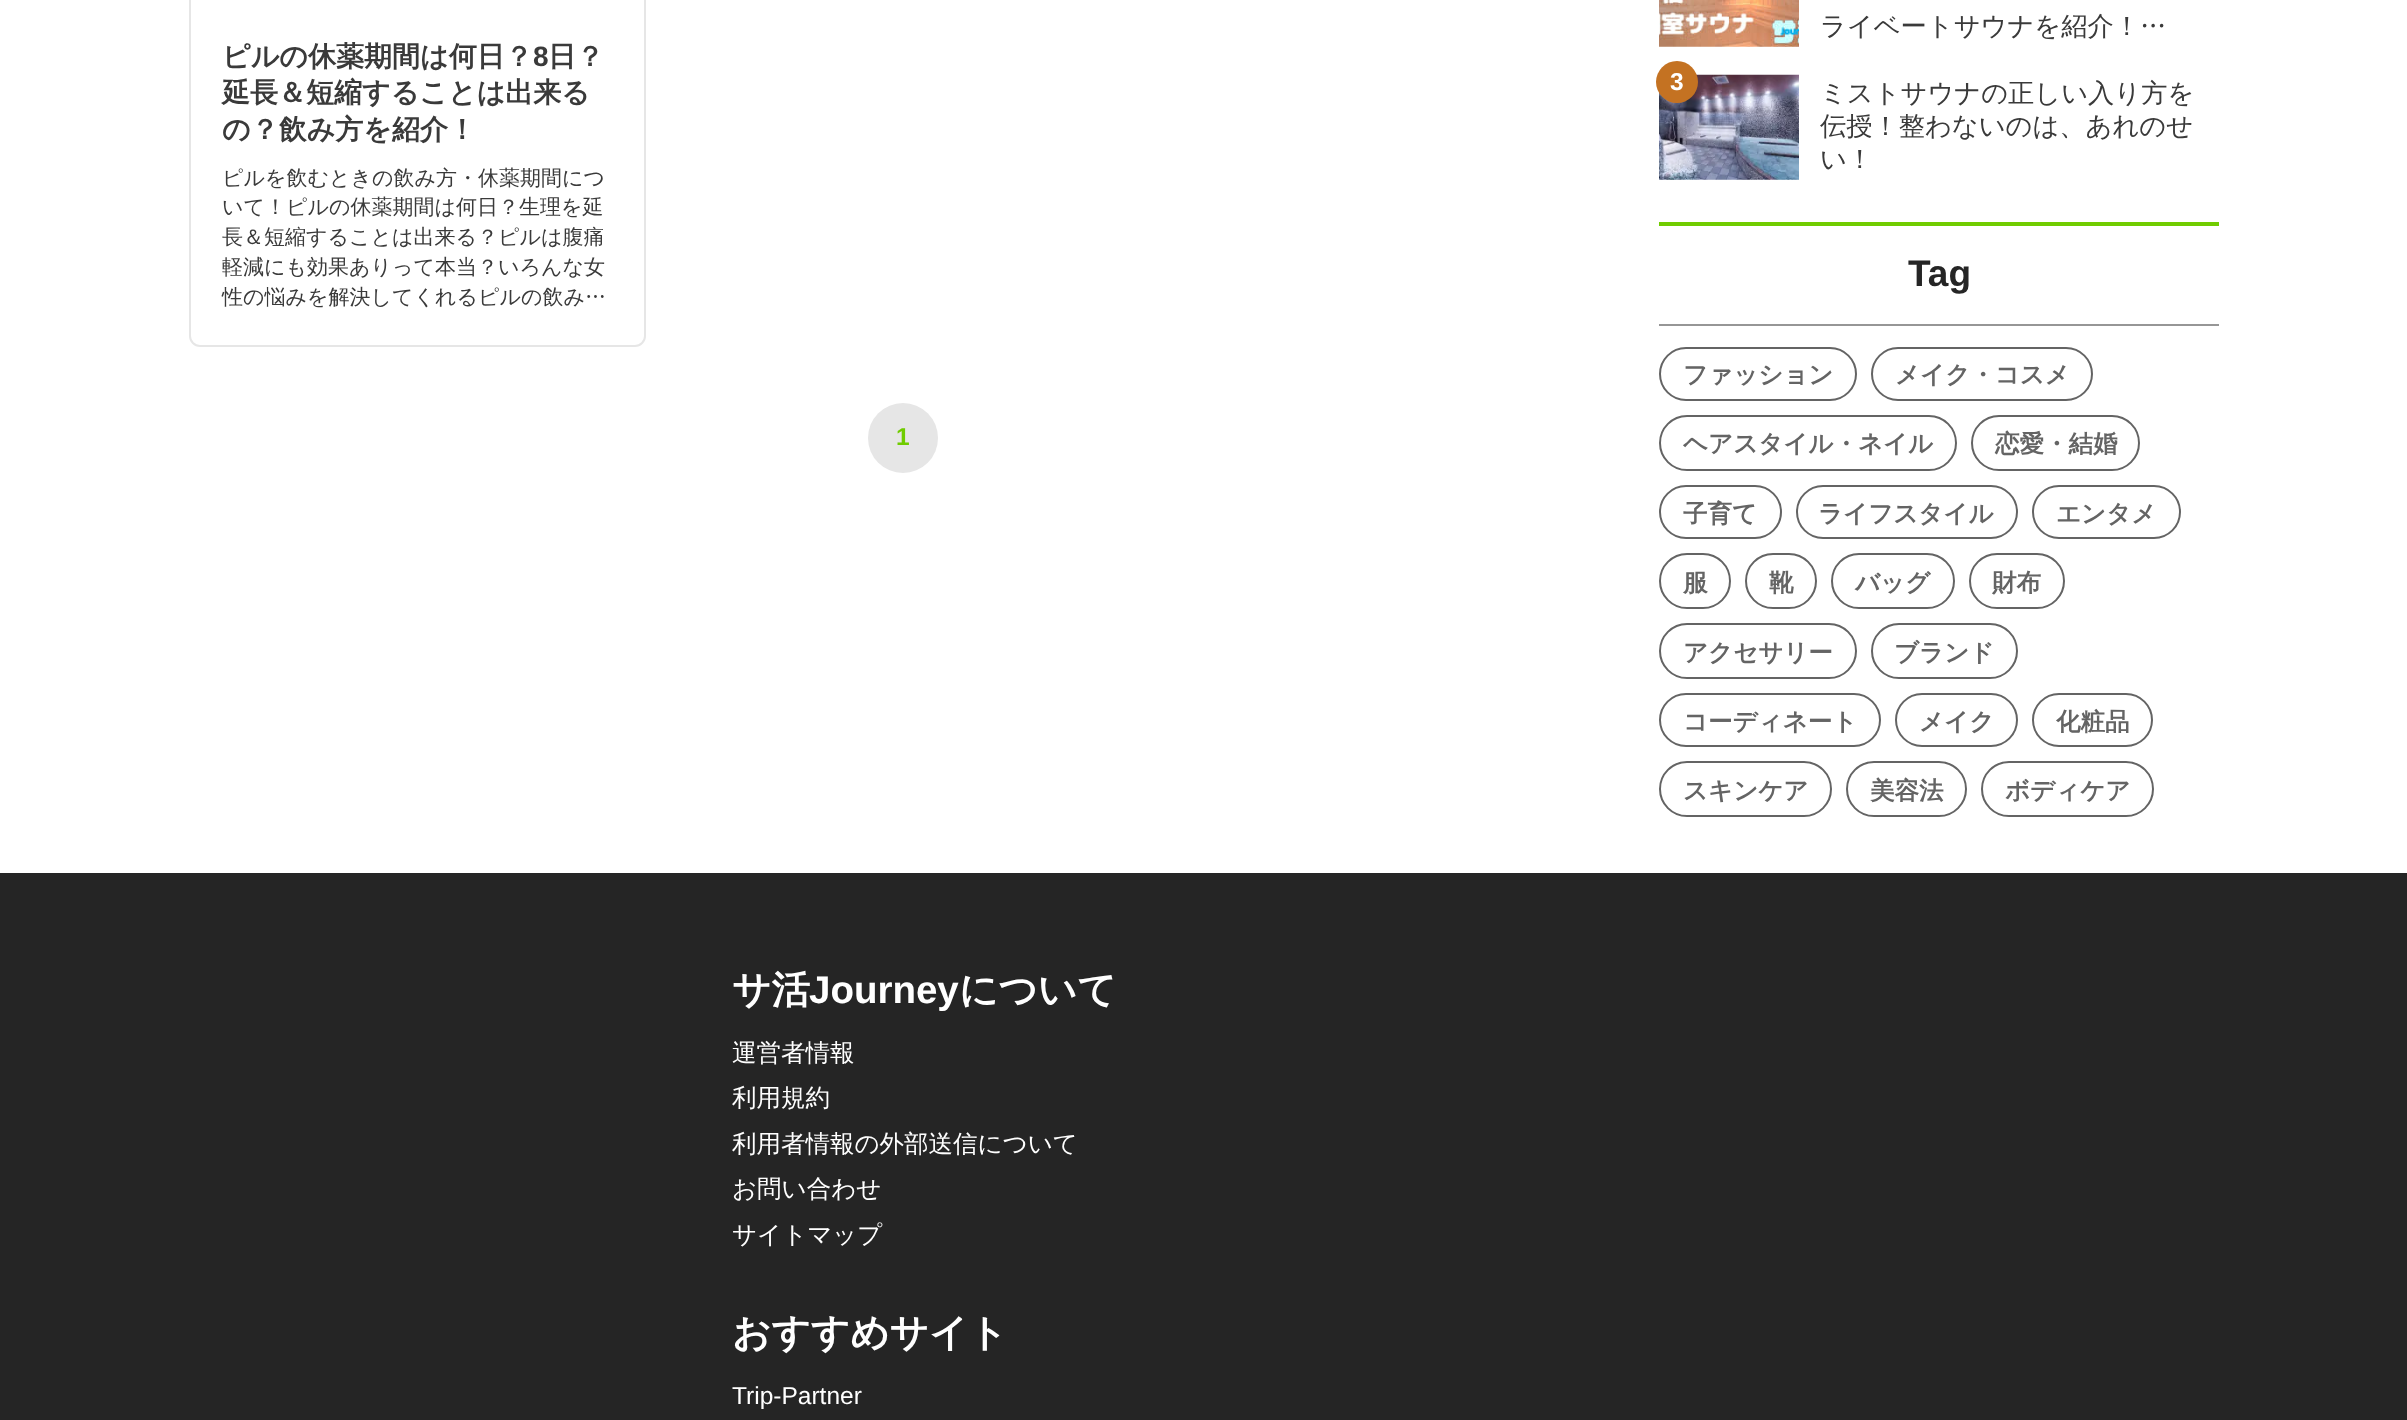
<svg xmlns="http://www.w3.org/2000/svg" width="2407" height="1420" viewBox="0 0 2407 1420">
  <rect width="100%" height="100%" fill="#fff"/>
  <rect x="190" y="-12" width="455" height="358" rx="10" fill="none" stroke="#e6e6e6" stroke-width="2"/>
  <circle cx="903" cy="438" r="35" fill="#e6e6e6"/>
  <image x="1659" y="0" width="140" height="47" href="img/1.png"/>
  <image x="1659" y="74" width="140" height="106" href="img/2.png"/>
  <circle cx="1677" cy="82" r="21" fill="#c47222"/>
  <path d="M1659 222h560v4H1659z" fill="#70cc00"/>
  <path d="M1659 324h560v2H1659z" fill="#969696"/>
  <rect x="1660" y="348" width="196" height="52" rx="26" fill="none" stroke="#646464" stroke-width="2"/>
  <rect x="1872" y="348" width="220" height="52" rx="26" fill="none" stroke="#646464" stroke-width="2"/>
  <rect x="1660" y="416" width="296" height="54" rx="27" fill="none" stroke="#646464" stroke-width="2"/>
  <rect x="1972" y="416" width="167" height="54" rx="27" fill="none" stroke="#646464" stroke-width="2"/>
  <rect x="1660" y="486" width="121" height="52" rx="26" fill="none" stroke="#646464" stroke-width="2"/>
  <rect x="1797" y="486" width="220" height="52" rx="26" fill="none" stroke="#646464" stroke-width="2"/>
  <rect x="2033" y="486" width="147" height="52" rx="26" fill="none" stroke="#646464" stroke-width="2"/>
  <rect x="1660" y="554" width="70" height="54" rx="27" fill="none" stroke="#646464" stroke-width="2"/>
  <rect x="1746" y="554" width="70" height="54" rx="27" fill="none" stroke="#646464" stroke-width="2"/>
  <rect x="1832" y="554" width="122" height="54" rx="27" fill="none" stroke="#646464" stroke-width="2"/>
  <rect x="1970" y="554" width="94" height="54" rx="27" fill="none" stroke="#646464" stroke-width="2"/>
  <rect x="1660" y="624" width="196" height="54" rx="27" fill="none" stroke="#646464" stroke-width="2"/>
  <rect x="1872" y="624" width="145" height="54" rx="27" fill="none" stroke="#646464" stroke-width="2"/>
  <rect x="1660" y="694" width="220" height="52" rx="26" fill="none" stroke="#646464" stroke-width="2"/>
  <rect x="1896" y="694" width="121" height="52" rx="26" fill="none" stroke="#646464" stroke-width="2"/>
  <rect x="2033" y="694" width="119" height="52" rx="26" fill="none" stroke="#646464" stroke-width="2"/>
  <rect x="1660" y="762" width="171" height="54" rx="27" fill="none" stroke="#646464" stroke-width="2"/>
  <rect x="1847" y="762" width="119" height="54" rx="27" fill="none" stroke="#646464" stroke-width="2"/>
  <rect x="1982" y="762" width="171" height="54" rx="27" fill="none" stroke="#646464" stroke-width="2"/>
  <path d="M0 873h2407v547H0z" fill="#252525"/>
  <text x="222" y="66" font-family="WenQuanYi Zen Hei" font-size="28" font-weight="bold" fill="#3a3a3a">ピルの休薬期間は何日？</text>
  <text x="533" y="66" font-family="Liberation Sans" font-size="28" font-weight="bold" fill="#3a3a3a">8</text>
  <g font-family="WenQuanYi Zen Hei" font-size="28" font-weight="bold" fill="#3a3a3a">
    <text x="548" y="66">日？</text>
    <text x="222" y="102">延長＆短縮することは出来る</text>
    <text x="222" y="139">の？飲み方を紹介！</text>
  </g>
  <g font-family="WenQuanYi Zen Hei" font-size="21" font-weight="500" fill="#3a3a3a">
    <text x="222" y="185">ピルを飲むときの飲み方・休薬期間につ</text>
    <text x="222" y="214">いて！ピルの休薬期間は何日？生理を延</text>
    <text x="222" y="244">長＆短縮することは出来る？ピルは腹痛</text>
    <text x="222" y="274">軽減にも効果ありって本当？いろんな女</text>
    <text x="222" y="304">性の悩みを解決してくれるピルの飲み…</text>
  </g>
  <text x="896" y="445" font-family="Liberation Sans" font-size="24.5" font-weight="bold" fill="#70cc00">1</text>
  <text x="1820" y="35" font-family="WenQuanYi Zen Hei" font-size="26.25" font-weight="500" fill="#3a3a3a">ライベートサウナを紹介！…</text>
  <text x="1670" y="90" font-family="Liberation Sans" font-size="24.5" font-weight="bold" fill="#fff">3</text>
  <g font-family="WenQuanYi Zen Hei" font-size="26.25" font-weight="500" fill="#3a3a3a">
    <text x="1820" y="102">ミストサウナの正しい入り方を</text>
    <text x="1820" y="135">伝授！整わないのは、あれのせ</text>
    <text x="1820" y="168">い！</text>
  </g>
  <text x="1908" y="286" font-family="Liberation Sans" font-size="37" font-weight="bold" fill="#252525">Tag</text>
  <g font-family="WenQuanYi Zen Hei" font-size="24.5" font-weight="bold" fill="#646464">
    <text x="1683" y="383">ファッション</text>
    <text x="1895" y="383">メイク・コスメ</text>
    <text x="1683" y="452">ヘアスタイル・ネイル</text>
    <text x="1995" y="452">恋愛・結婚</text>
    <text x="1683" y="522">子育て</text>
    <text x="1818" y="522">ライフスタイル</text>
    <text x="2056" y="522">エンタメ</text>
    <text x="1683" y="591">服</text>
    <text x="1769" y="591">靴</text>
    <text x="1855" y="591">バッグ</text>
    <text x="1992" y="591">財布</text>
    <text x="1683" y="661">アクセサリー</text>
    <text x="1894" y="661">ブランド</text>
    <text x="1683" y="730">コーディネート</text>
    <text x="1919" y="730">メイク</text>
    <text x="2056" y="730">化粧品</text>
    <text x="1683" y="799">スキンケア</text>
    <text x="1870" y="799">美容法</text>
    <text x="2005" y="799">ボディケア</text>
  </g>
  <text x="732" y="1003" font-family="WenQuanYi Zen Hei" font-size="38.5" font-weight="bold" fill="#fff">サ活</text>
  <text x="809" y="1003" font-family="Liberation Sans" font-size="38.5" font-weight="bold" fill="#fff">Journey</text>
  <text x="959" y="1003" font-family="WenQuanYi Zen Hei" font-size="38.5" font-weight="bold" fill="#fff">について</text>
  <g font-family="WenQuanYi Zen Hei" font-size="24.5" font-weight="500" fill="#fff">
    <text x="732" y="1061">運営者情報</text>
    <text x="732" y="1106">利用規約</text>
    <text x="732" y="1152">利用者情報の外部送信について</text>
    <text x="732" y="1197">お問い合わせ</text>
    <text x="732" y="1243">サイトマップ</text>
  </g>
  <text x="732" y="1346" font-family="WenQuanYi Zen Hei" font-size="38.5" font-weight="bold" fill="#fff">おすすめサイト</text>
  <text x="732" y="1404" font-family="Liberation Sans" font-size="24.5" fill="#fff">Trip-Partner</text>
</svg>
